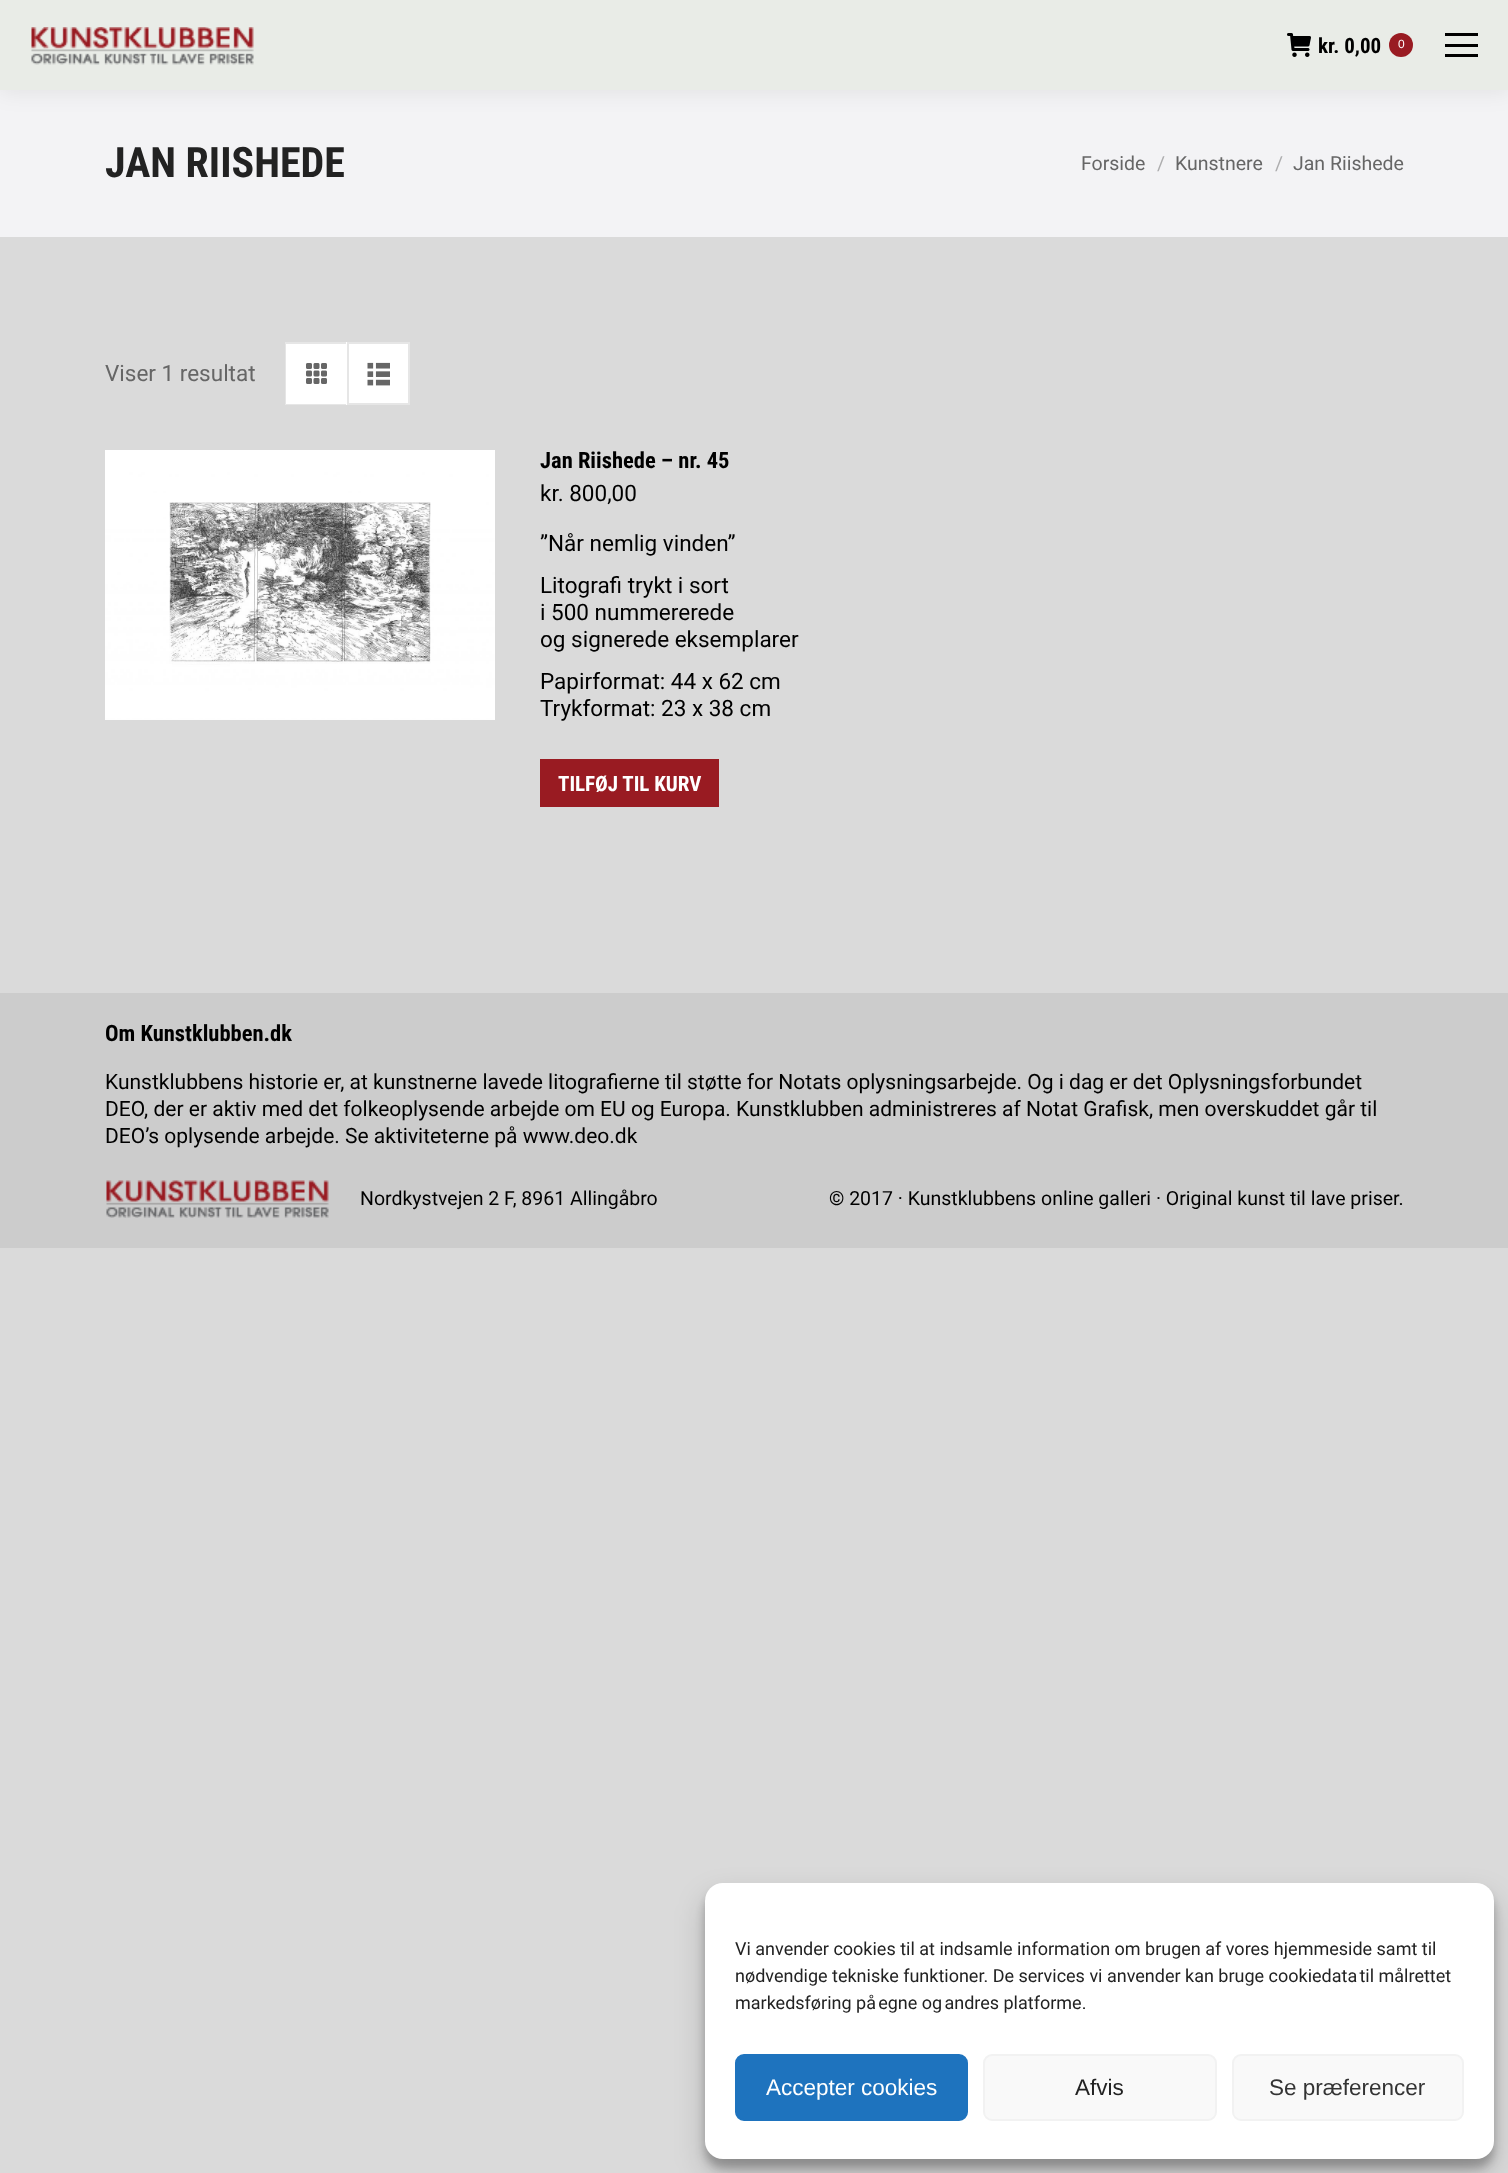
<svg xmlns="http://www.w3.org/2000/svg" width="1508" height="2173" viewBox="0 0 1508 2173">
  <rect width="100%" height="100%" fill="#dadada"/>
  <path d="M0 90h1508v147H0z" fill="#f3f3f5"/>
  <path d="M-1 -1h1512v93H-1z" fill="#00000012" filter="blur(11px)"/>
  <path d="M0 0h1508v90H0z" fill="#e9ece7"/>
  <image x="31" y="27" width="223" height="38" href="img/1.png"/>
  <image x="1287" y="33" width="24" height="24" href="img/2.png"/>
  <circle cx="1401" cy="45" r="12" fill="#991b22"/>
  <path d="M1445 33h33v3H1445z" fill="#000"/>
  <path d="M1445 44h33v3H1445z" fill="#000"/>
  <path d="M1445 54h33v3H1445z" fill="#000"/>
  <path d="M285 342h62v63H285z" fill="#fff"/>
  <path d="M285 342H346V344H286ZM346 405H285L286 404H346Z" fill="#e6e6e6"/>
  <path d="M285 405V342L286 344V404Z" fill="#cccccc80"/>
  <image x="306" y="363" width="21" height="21" href="img/3.png"/>
  <path d="M348 343h61v61H348z" fill="#fff" stroke="#e6e6e6" stroke-width="2"/>
  <image x="367" y="362" width="23" height="24" href="img/4.png"/>
  <image x="105" y="450" width="390" height="270" href="img/5.png"/>
  <path d="M540 759h179v48H540z" fill="#991b22"/>
  <path d="M0 993h1508v255H0z" fill="#ccc"/>
  <image x="106" y="1180" width="223" height="38" href="img/6.png"/>
  <rect x="705" y="1892" width="789" height="276" rx="18" fill="#0000003b" filter="blur(4.5px)"/>
  <rect x="705" y="1898" width="789" height="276" rx="18" fill="#00000030" filter="blur(15px)"/>
  <rect x="705" y="1883" width="789" height="276" rx="18" fill="#fff"/>
  <rect x="736" y="2055" width="231" height="65" rx="8" fill="#1e73be" stroke="#1e73be" stroke-width="2"/>
  <rect x="984" y="2055" width="232" height="65" rx="8" fill="#f9f9f9" stroke="#f2f2f2" stroke-width="2"/>
  <rect x="1233" y="2055" width="230" height="65" rx="8" fill="#f9f9f9" stroke="#f2f2f2" stroke-width="2"/>
  <text x="1318" y="53" font-family="Roboto Condensed" font-size="21" font-weight="bold" fill="#000">kr. 0,00</text>
  <text x="1398" y="48" font-family="Liberation Sans" font-size="12" fill="#fff">0</text>
  <text x="105" y="177" font-family="Roboto Condensed" font-size="42" font-weight="bold" fill="#222">JAN RIISHEDE</text>
  <text x="1081" y="170" font-family="Roboto" font-size="19.5" fill="#666">Forside</text>
  <text x="1157" y="170" font-family="Roboto" font-size="19.5" fill="#adadae">/</text>
  <text x="1175" y="170" font-family="Roboto" font-size="19.5" fill="#666">Kunstnere</text>
  <text x="1275" y="170" font-family="Roboto" font-size="19.5" fill="#adadae">/</text>
  <text x="1293" y="170" font-family="Roboto" font-size="19.5" fill="#666">Jan Riishede</text>
  <text x="105" y="381" font-family="Roboto" font-size="22.5" fill="#666">Viser 1 resultat</text>
  <text x="540" y="468" font-family="Roboto Condensed" font-size="22.5" font-weight="bold" fill="#000">Jan Riishede – nr. 45</text>
  <g font-family="Roboto" font-size="22.5" fill="#000">
    <text x="540" y="501">kr. 800,00</text>
    <text x="540" y="551">”Når nemlig vinden”</text>
    <text x="540" y="593">Litografi trykt i sort</text>
    <text x="540" y="620">i 500 nummererede</text>
    <text x="540" y="647">og signerede eksemplarer</text>
    <text x="540" y="689">Papirformat: 44 x 62 cm</text>
    <text x="540" y="716">Trykformat: 23 x 38 cm</text>
  </g>
  <text x="558" y="791" font-family="Roboto Condensed" font-size="21" font-weight="bold" fill="#fff">TILFØJ TIL KURV</text>
  <text x="105" y="1041" font-family="Roboto Condensed" font-size="22.5" font-weight="bold" fill="#000">Om Kunstklubben.dk</text>
  <g font-family="Roboto" font-size="21" fill="#000">
    <text x="105" y="1089">Kunstklubbens historie er, at kunstnerne lavede litografierne til støtte for Notats oplysningsarbejde. Og i dag er det Oplysningsforbundet</text>
    <text x="105" y="1116">DEO, der er aktiv med det folkeoplysende arbejde om EU og Europa. Kunstklubben administreres af Notat Grafisk, men overskuddet går til</text>
    <text x="105" y="1143">DEO’s oplysende arbejde. Se aktiviteterne på www.deo.dk</text>
  </g>
  <g font-family="Roboto" font-size="19.5" fill="#000">
    <text x="360" y="1205">Nordkystvejen 2 F, 8961 Allingåbro</text>
    <text x="829" y="1205">© 2017 · Kunstklubbens online galleri · Original kunst til lave priser.</text>
  </g>
  <g font-family="Roboto" font-size="18" fill="#222">
    <text x="735" y="1955">Vi anvender cookies til at indsamle information om brugen af vores hjemmeside samt til</text>
    <text x="735" y="1982">nødvendige tekniske funktioner. De services vi anvender kan bruge cookiedata til målrettet</text>
    <text x="735" y="2009">markedsføring på egne og andres platforme.</text>
  </g>
  <text x="766" y="2095" font-family="Liberation Sans" font-size="22.5" fill="#fff">Accepter cookies</text>
  <text x="1075" y="2095" font-family="Liberation Sans" font-size="22.5" fill="#222">Afvis</text>
  <text x="1269" y="2095" font-family="Liberation Sans" font-size="22.5" fill="#333">Se præferencer</text>
</svg>
